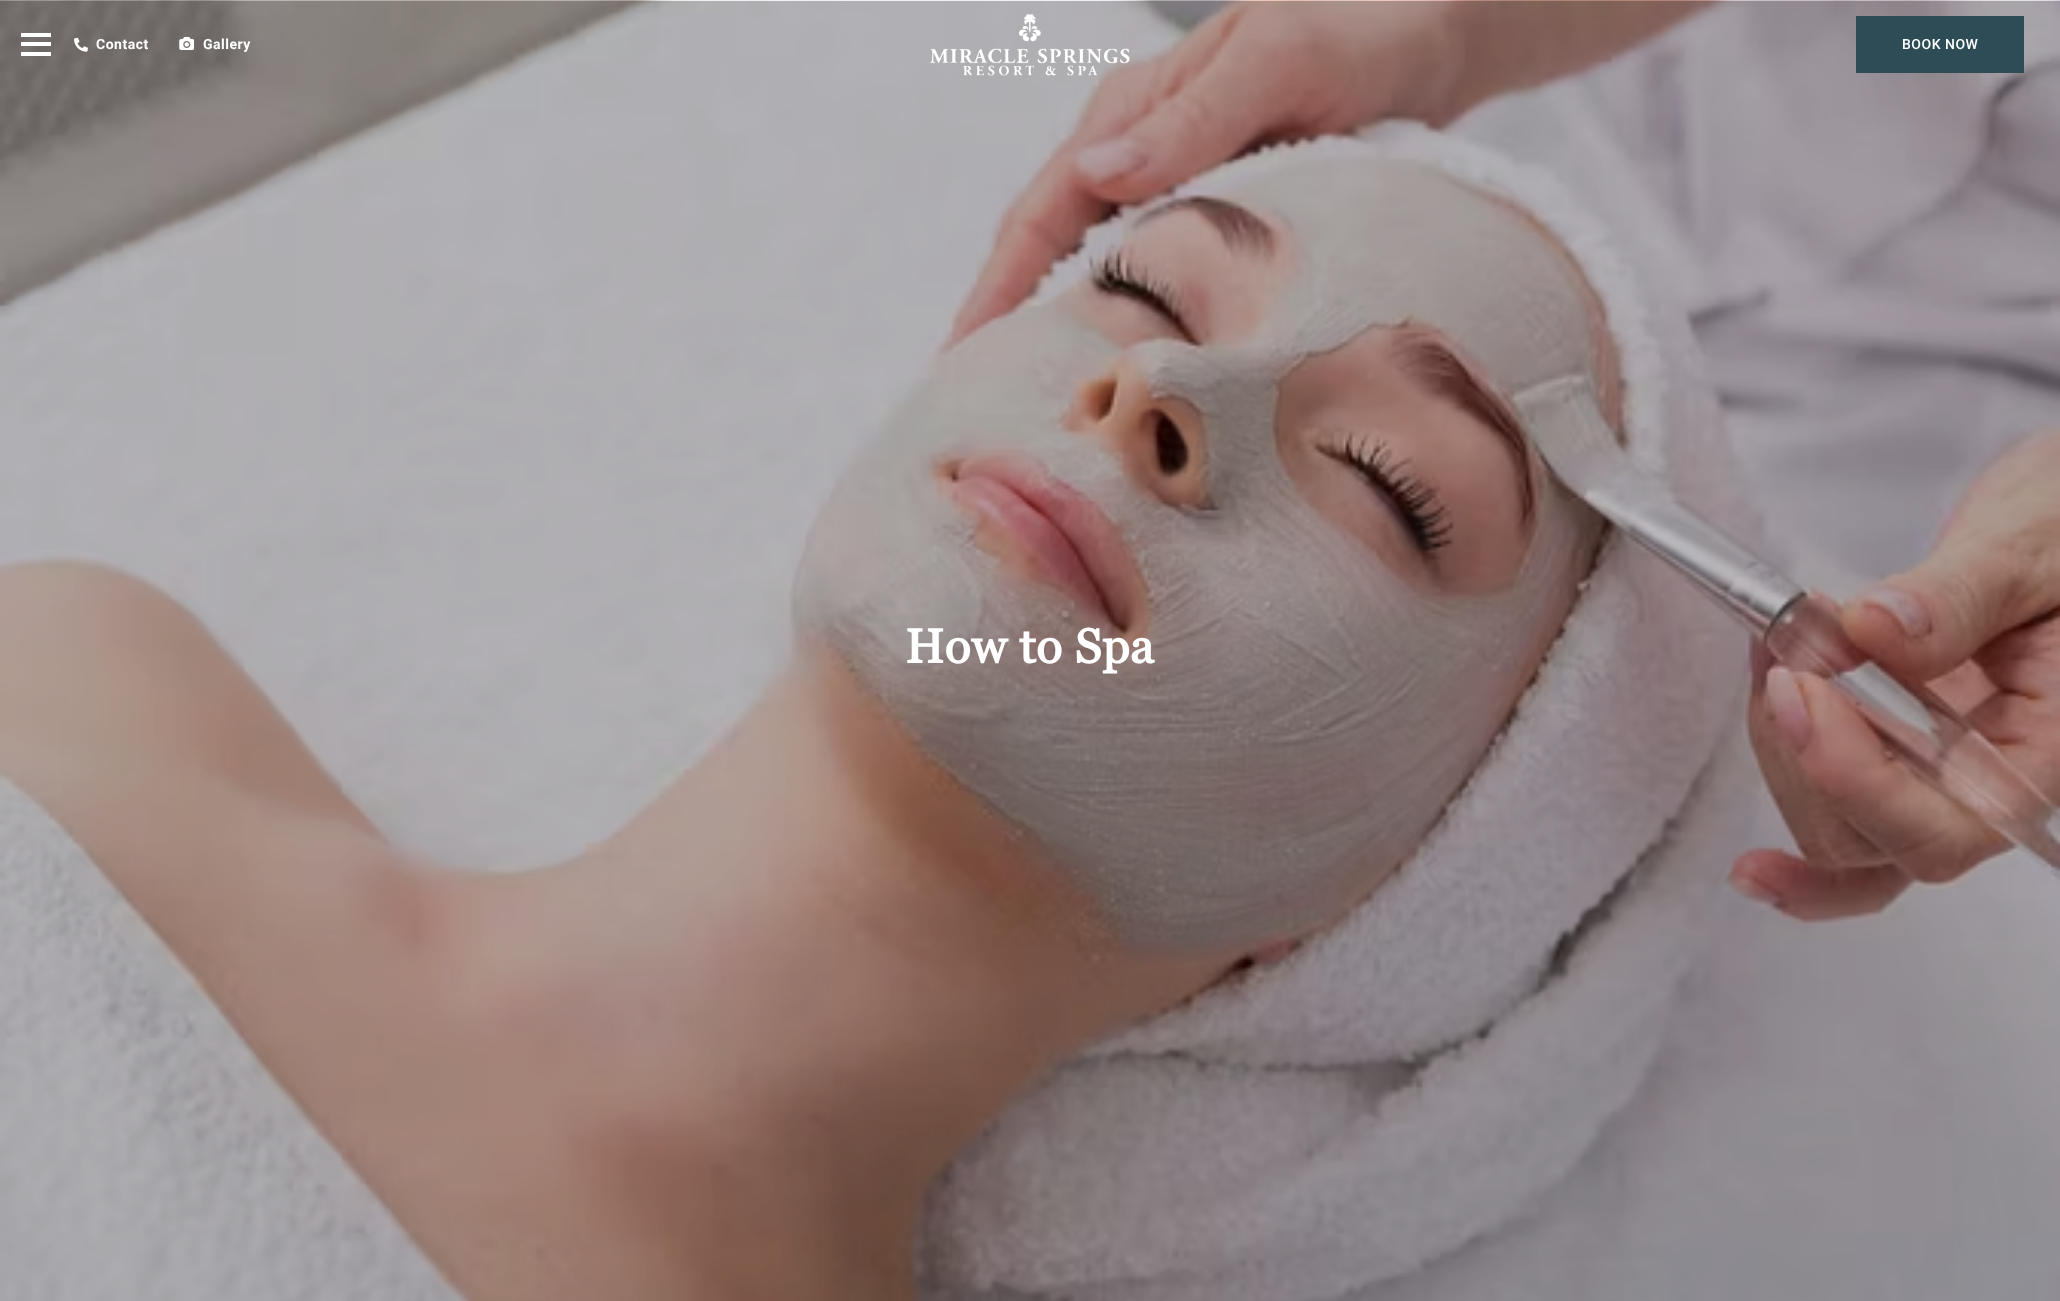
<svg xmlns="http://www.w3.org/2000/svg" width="2060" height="1301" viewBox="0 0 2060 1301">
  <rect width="100%" height="100%" fill="#fff"/>
  <image x="0" y="0" width="2060" height="1301" href="img/4.png"/>
  <path d="M21 33h30v4H21z" fill="#fff"/>
  <path d="M21 42h30v4H21z" fill="#fff"/>
  <path d="M21 52h30v4H21z" fill="#fff"/>
  <image x="74" y="37" width="14" height="15" href="img/1.png"/>
  <image x="179" y="37" width="15" height="13" href="img/2.png"/>
  <image x="930" y="14" width="200" height="62" href="img/3.png"/>
  <path d="M1856 16h168v57H1856z" fill="#2d4c56"/>
  <g font-family="Roboto" font-size="14" font-weight="bold" letter-spacing="0.5" fill="#fff">
    <text x="96" y="49">Contact</text>
    <text x="203" y="49">Gallery</text>
  </g>
  <text x="1902" y="49" font-family="Roboto" font-size="14" font-weight="500" letter-spacing="0.5" fill="#fff">BOOK NOW</text>
  <text x="905" y="663" font-family="Georgia" font-size="48" font-weight="bold" letter-spacing="0.5" fill="#fff">How to Spa</text>
</svg>
